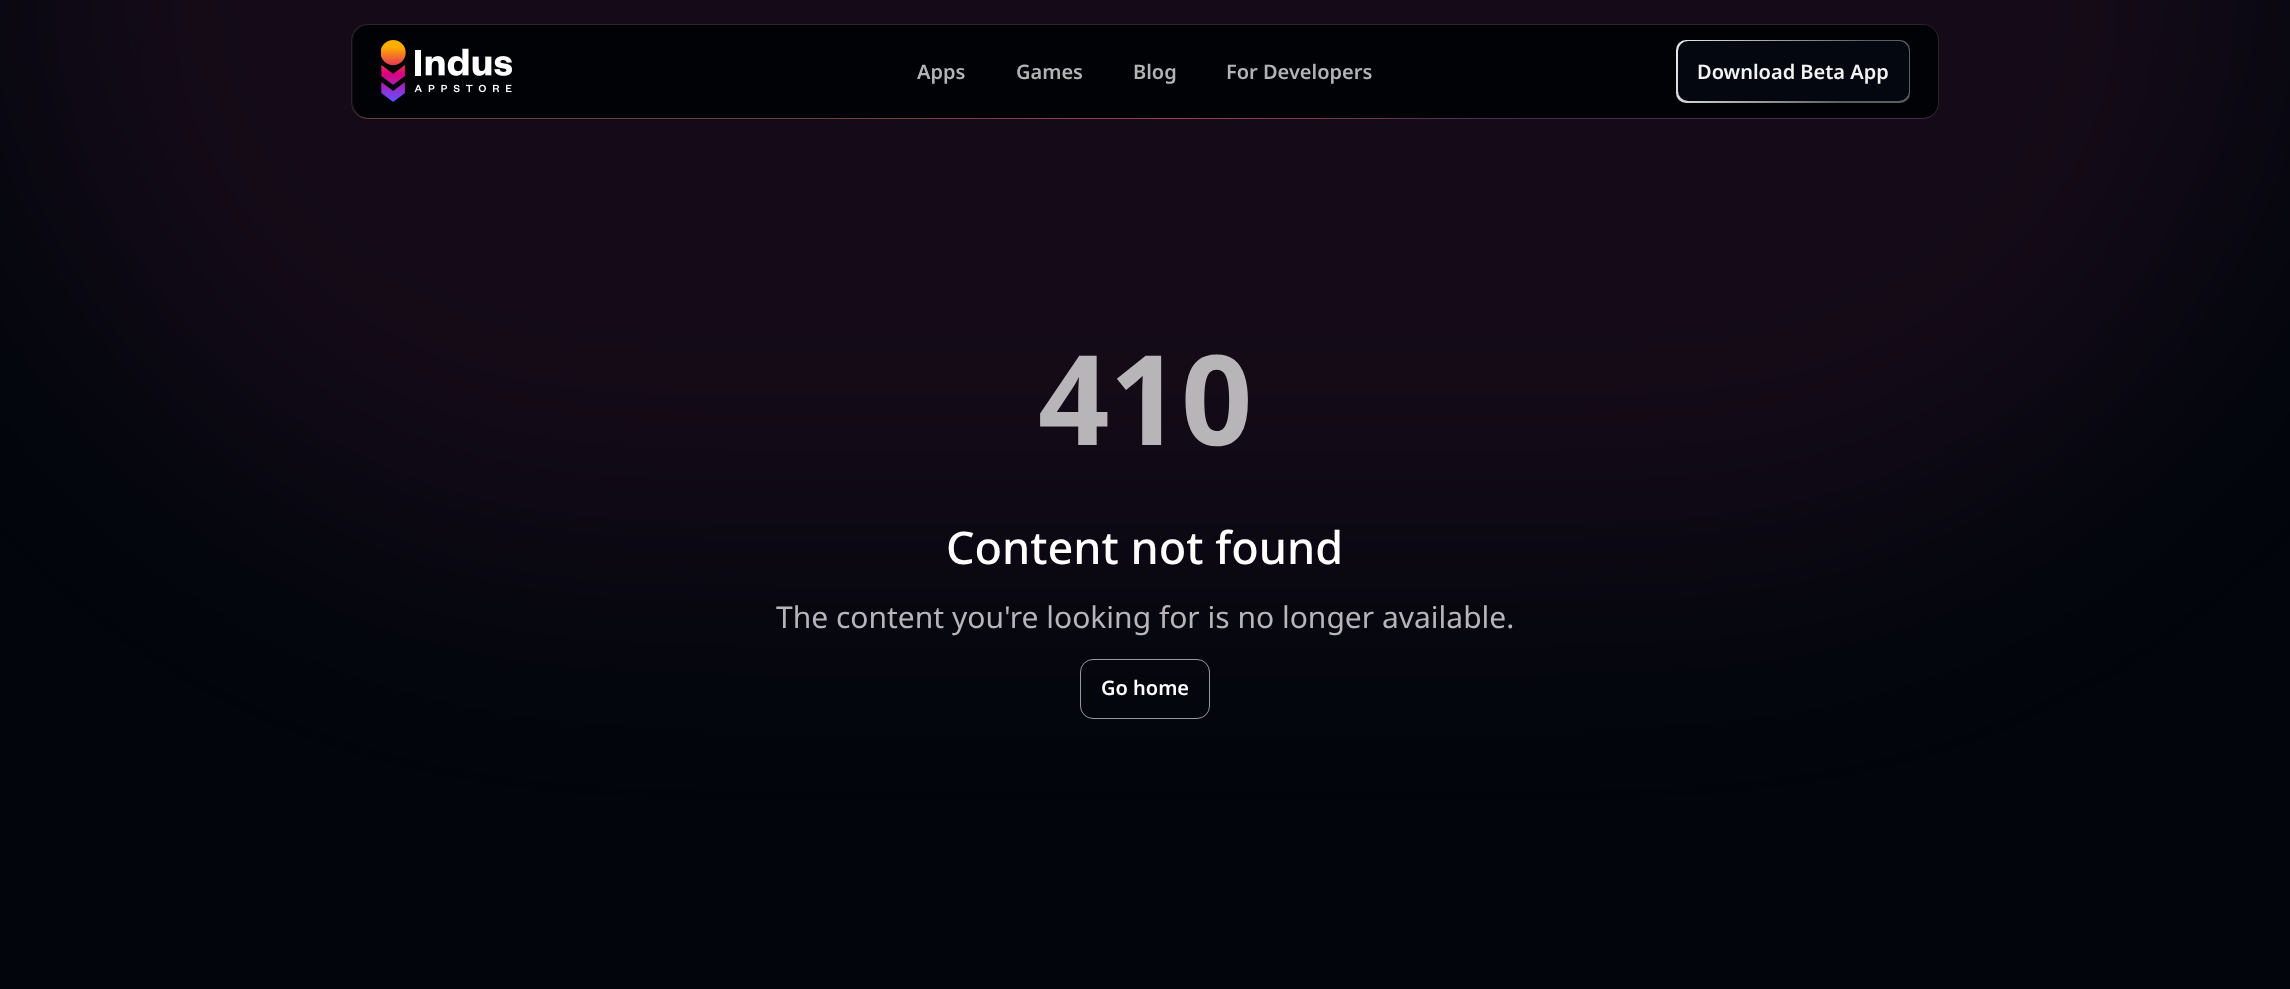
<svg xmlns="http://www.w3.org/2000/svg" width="2290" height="989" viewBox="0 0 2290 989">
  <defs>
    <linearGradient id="g1" gradientUnits="userSpaceOnUse" x1="353" y1="72" x2="1938" y2="72"><stop offset="0.29" stop-color="#582c1d"/><stop offset="0.52" stop-color="#94283a"/><stop offset="0.74" stop-color="#2a1541"/></linearGradient>
    <linearGradient id="g2" gradientUnits="userSpaceOnUse" x1="1662" y1="14" x2="1903" y2="119"><stop offset="0" stop-color="#fff"/><stop offset="0.76" stop-color="#5c5d5e"/></linearGradient>
  </defs>
  <rect width="100%" height="100%" fill="#02060c"/>
  <rect y="-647" width="2290" height="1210" rx="605" fill="#c13f861a" filter="blur(125px)"/>
  <rect x="353" y="25" width="1585" height="94" rx="15" fill="url(#g1)"/>
  <rect x="351.5" y="24.5" width="1587" height="94" rx="15.5" fill="none" stroke="#ffffff1a"/>
  <rect x="353" y="25" width="1585" height="93" rx="15" fill="#000206"/>
  <image x="381" y="40" width="131" height="62" href="img/1.png"/>
  <rect x="1676" y="40" width="234" height="63" rx="10" fill="url(#g2)"/>
  <rect x="1678" y="41" width="231" height="60" rx="10" fill="#04070f"/>
  <rect x="1080.5" y="659.5" width="129" height="59" rx="12.5" fill="none" stroke="#999"/>
  <g font-family="Noto Sans" font-size="20" font-weight="600" fill="#b2b3b4">
    <text x="917" y="79">Apps</text>
    <text x="1016" y="79">Games</text>
    <text x="1133" y="79">Blog</text>
    <text x="1226" y="79">For Developers</text>
  </g>
  <text x="1697" y="79" font-family="Noto Sans" font-size="20" font-weight="600" fill="#f2f3f3">Download Beta App</text>
  <text x="1038" y="445" font-family="Noto Sans" font-size="125" font-weight="bold" fill="#b8b5b9">410</text>
  <text x="946" y="564" font-family="Noto Sans" font-size="45" font-weight="500" fill="#fff">Content not found</text>
  <text x="776" y="628" font-family="Noto Sans" font-size="30" fill="#b8b5b9">The content you're looking for is no longer available.</text>
  <text x="1101" y="695" font-family="Noto Sans" font-size="20" font-weight="600" fill="#fff">Go home</text>
</svg>
